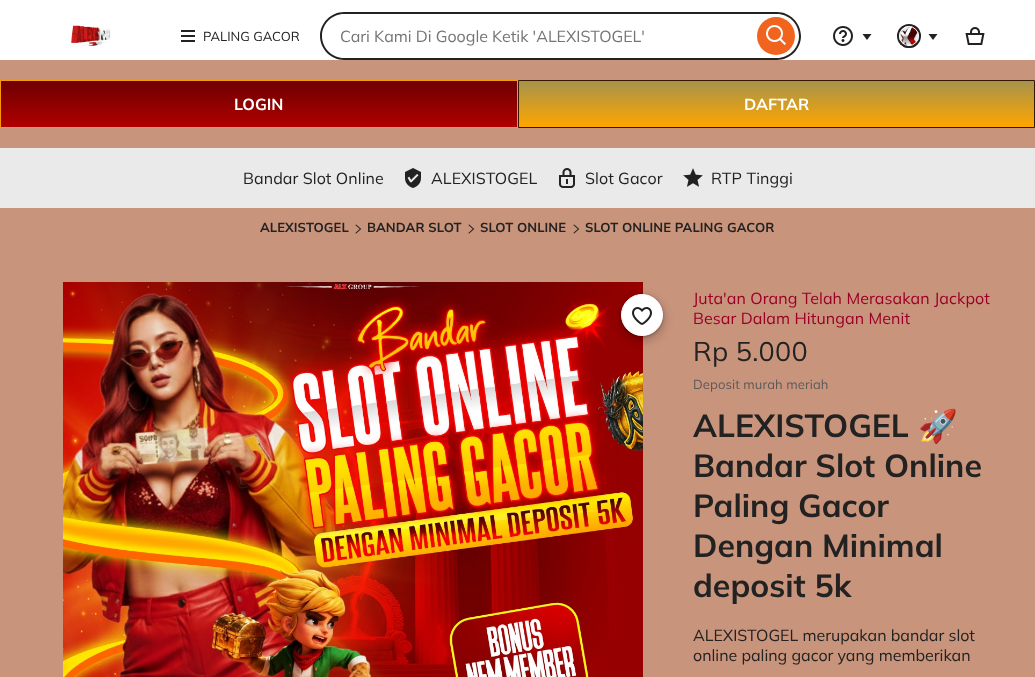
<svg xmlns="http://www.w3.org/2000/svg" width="1035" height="677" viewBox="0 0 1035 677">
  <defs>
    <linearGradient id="g1" gradientUnits="userSpaceOnUse" x1="259" y1="81" x2="259" y2="127"><stop offset="0" stop-color="#6e0000"/><stop offset="1" stop-color="#b00000"/></linearGradient>
    <linearGradient id="g2" gradientUnits="userSpaceOnUse" x1="777" y1="81" x2="777" y2="127"><stop offset="0" stop-color="#a5934c"/><stop offset="1" stop-color="#ffa600"/></linearGradient>
  </defs>
  <rect width="100%" height="100%" fill="#c9947c"/>
  <path d="M0 0h1035v60H0z" fill="#fff"/>
  <image x="71" y="25" width="40" height="22" href="img/1.png"/>
  <path d="M181 35h14v2H181z" fill="#222"/>
  <path d="M181 40h14v2H181z" fill="#222"/>
  <path d="M181 30h14v2H181z" fill="#222"/>
  <path d="M344 12H752V60H344C331 60 320 49 320 36C320 23 331 12 344 12ZM344 14H752V58H344C332 58 322 48 322 36C322 24 332 14 344 14Z" fill="#222" fill-rule="evenodd"/>
  <path d="M752 12H777C790 12 801 23 801 36C801 49 790 60 777 60H752ZM752 14H777C789 14 799 24 799 36C799 48 789 58 777 58H752Z" fill="#222" fill-rule="evenodd"/>
  <circle cx="776" cy="36" r="19" fill="#f1641e"/>
  <image x="766" y="25" width="20" height="20" href="img/2.png"/>
  <image x="833" y="26" width="20" height="20" href="img/3.png"/>
  <path d="M871.5 34L867 40L862.5 34Z" fill="#222"/>
  <circle cx="909" cy="36" r="12" fill="#eaeaea"/>
  <image x="899" y="24" width="20" height="24" href="img/4.png"/>
  <circle cx="909" cy="36" r="11" fill="none" stroke="#222" stroke-width="2"/>
  <circle cx="909" cy="36" r="9.5" fill="none" stroke="#fff"/>
  <path d="M937.5 34L933 40L928.5 34Z" fill="#222"/>
  <image x="965" y="27" width="20" height="18" href="img/5.png"/>
  <path d="M1 81h516v46H1z" fill="url(#g1)"/>
  <path d="M0.5 80.5h517v47H0.5z" fill="none" stroke="#ff9800"/>
  <path d="M519 81h515v46H519z" fill="url(#g2)"/>
  <path d="M518.5 80.5h516v47H518.5z" fill="none" stroke="#361800"/>
  <path d="M0 148h1035v60H0z" fill="#eaeaea"/>
  <image x="405" y="168" width="16" height="20" href="img/6.png"/>
  <image x="559" y="168" width="16" height="20" href="img/7.png"/>
  <image x="683" y="168" width="20" height="19" href="img/8.png"/>
  <image x="355" y="224" width="7" height="10" href="img/9.png"/>
  <image x="468" y="224" width="7" height="10" href="img/9.png"/>
  <image x="573" y="224" width="7" height="10" href="img/9.png"/>
  <image x="63" y="282" width="580" height="395" href="img/10.png"/>
  <rect x="618" y="295" width="48" height="48" rx="24" fill="#00000026" filter="blur(4px)"/>
  <rect x="621" y="295" width="42" height="42" rx="21" fill="#0000004d" filter="blur(1.5px)"/>
  <circle cx="642" cy="315" r="20.5" fill="#fff" stroke="#fff"/>
  <image x="632" y="307" width="20" height="18" href="img/11.png"/>
  <text x="203" y="41" font-family="Mulish" font-size="13" fill="#222">PALING GACOR</text>
  <text x="340" y="42" font-family="Mulish" font-size="16" fill="#757575">Cari Kami Di Google Ketik 'ALEXISTOGEL'</text>
  <g font-family="Mulish" font-size="16" font-weight="bold" fill="#fff">
    <text x="234" y="110">LOGIN</text>
    <text x="744" y="110">DAFTAR</text>
  </g>
  <g font-family="Mulish" font-size="16" letter-spacing="0.1" fill="#222">
    <text x="243" y="184">Bandar Slot Online</text>
    <text x="431" y="184">ALEXISTOGEL</text>
    <text x="585" y="184">Slot Gacor</text>
    <text x="711" y="184">RTP Tinggi</text>
  </g>
  <g font-family="Mulish" font-size="13" font-weight="bold" letter-spacing="0.1" fill="#222">
    <text x="260" y="232">ALEXISTOGEL</text>
    <text x="367" y="232">BANDAR SLOT</text>
    <text x="480" y="232">SLOT ONLINE</text>
    <text x="585" y="232">SLOT ONLINE PALING GACOR</text>
  </g>
  <g font-family="Mulish" font-size="16" letter-spacing="0.1" fill="#9a0027">
    <text x="693" y="304">Juta'an Orang Telah Merasakan Jackpot</text>
    <text x="693" y="324">Besar Dalam Hitungan Menit</text>
  </g>
  <text x="693" y="361" font-family="Mulish" font-size="27" letter-spacing="0.25" fill="#222">Rp 5.000</text>
  <text x="693" y="389" font-family="Mulish" font-size="13" letter-spacing="0.1" fill="#595959">Deposit murah meriah</text>
  <text x="693" y="437" font-family="Mulish" font-size="32" font-weight="bold" fill="#222">ALEXISTOGEL</text>
  <text x="918" y="437" font-family="Noto Color Emoji" font-size="32" font-weight="bold" fill="#222">🚀</text>
  <g font-family="Mulish" font-size="32" font-weight="bold" fill="#222">
    <text x="693" y="477">Bandar Slot Online</text>
    <text x="693" y="517">Paling Gacor</text>
    <text x="693" y="557">Dengan Minimal</text>
    <text x="693" y="597">deposit 5k</text>
  </g>
  <g font-family="Mulish" font-size="16" fill="#222">
    <text x="693" y="641">ALEXISTOGEL merupakan bandar slot</text>
    <text x="693" y="661">online paling gacor yang memberikan</text>
  </g>
</svg>
